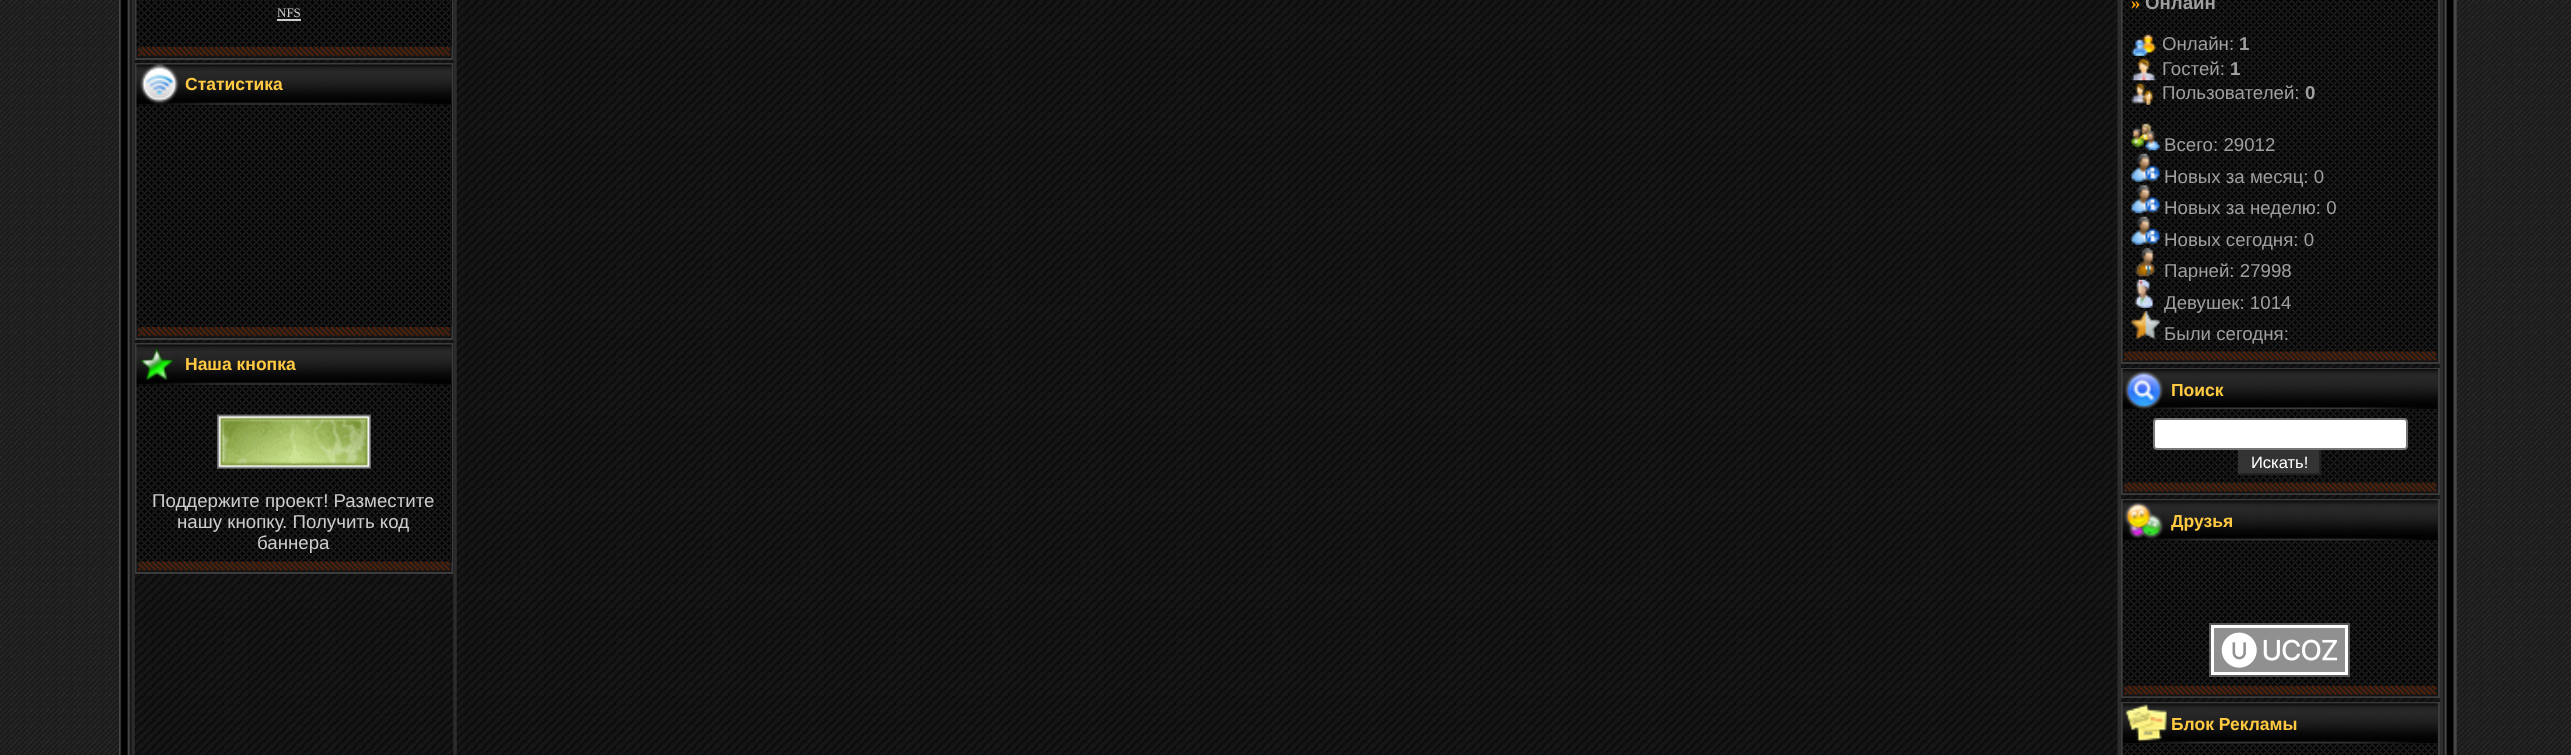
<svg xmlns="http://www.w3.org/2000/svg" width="2571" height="755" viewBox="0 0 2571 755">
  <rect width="100%" height="100%" fill="#fff"/>
  <image x="0" y="0" width="2571" height="755" href="img/1.png"/>
  <image x="119" y="0" width="11" height="755" href="img/2.png"/>
  <path d="M131 -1h2313v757H131z" fill="#2c2c2c" stroke="#1a1a1a" stroke-width="2"/>
  <image x="134" y="0" width="320" height="755" href="img/3.png"/>
  <path d="M136 -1h316v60H136z" fill="none" stroke="#3c3c3c" stroke-width="2"/>
  <path d="M451 0h1v47H451z" fill="#131313"/>
  <image x="136" y="0" width="316" height="47" href="img/4.png"/>
  <path d="M277 19h24v2H277z" fill="#ccc"/>
  <image x="136" y="47" width="316" height="11" href="img/5.png"/>
  <path d="M136 64h316v275H136z" fill="none" stroke="#3c3c3c" stroke-width="2"/>
  <path d="M137 65h315v40H137z" fill="#252525"/>
  <image x="136" y="64" width="316" height="41" href="img/6.png"/>
  <path d="M451 105h1v222H451z" fill="#131313"/>
  <image x="136" y="104" width="316" height="223" href="img/7.png"/>
  <image x="136" y="327" width="316" height="11" href="img/5.png"/>
  <path d="M136 344h316v229H136z" fill="none" stroke="#3c3c3c" stroke-width="2"/>
  <path d="M137 345h315v40H137z" fill="#252525"/>
  <image x="136" y="344" width="316" height="41" href="img/8.png"/>
  <path d="M137 385h315v177H137z" fill="#131313"/>
  <image x="136" y="384" width="316" height="178" href="img/9.png"/>
  <image x="217" y="414" width="154" height="55" href="img/10.png"/>
  <image x="136" y="561" width="316" height="11" href="img/11.png"/>
  <image x="456" y="0" width="1662" height="755" href="img/12.png"/>
  <image x="2121" y="352" width="319" height="403" href="img/13.png"/>
  <path d="M2122 -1h317v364H2122z" fill="none" stroke="#3c3c3c" stroke-width="2"/>
  <path d="M2123 0h315v352H2123z" fill="#131313"/>
  <image x="2122" y="0" width="316" height="352" href="img/14.png"/>
  <image x="2131" y="34" width="25" height="22" href="img/15.png"/>
  <image x="2131" y="59" width="25" height="22" href="img/16.png"/>
  <image x="2131" y="83" width="25" height="22" href="img/17.png"/>
  <image x="2131" y="123" width="29" height="28" href="img/18.png"/>
  <image x="2131" y="153" width="29" height="29" href="img/19.png"/>
  <image x="2131" y="185" width="29" height="29" href="img/20.png"/>
  <image x="2131" y="216" width="29" height="29" href="img/19.png"/>
  <image x="2134" y="248" width="21" height="29" href="img/21.png"/>
  <image x="2134" y="279" width="20" height="29" href="img/22.png"/>
  <image x="2131" y="311" width="29" height="29" href="img/23.png"/>
  <image x="2122" y="351" width="316" height="11" href="img/24.png"/>
  <path d="M2122 369h317v125H2122z" fill="none" stroke="#3c3c3c" stroke-width="2"/>
  <path d="M2123 369h315v41H2123z" fill="#252525"/>
  <image x="2122" y="369" width="316" height="41" href="img/25.png"/>
  <path d="M2123 410h315v73H2123z" fill="#131313"/>
  <image x="2122" y="409" width="316" height="74" href="img/26.png"/>
  <rect x="2154" y="419" width="253" height="30" rx="3" fill="#fff" stroke="#767676" stroke-width="2"/>
  <path d="M2240 450h79v23H2240z" fill="#333"/>
  <path d="M2319 450h2v24H2319z" fill="#222"/>
  <path d="M2238 473h83v2H2238z" fill="#222"/>
  <path d="M2238 450h2v24H2238z" fill="#333"/>
  <image x="2122" y="482" width="316" height="12" href="img/27.png"/>
  <path d="M2122 500h317v197H2122z" fill="none" stroke="#3c3c3c" stroke-width="2"/>
  <path d="M2123 501h315v40H2123z" fill="#252525"/>
  <image x="2122" y="500" width="316" height="41" href="img/28.png"/>
  <path d="M2123 541h315v145H2123z" fill="#131313"/>
  <image x="2122" y="540" width="316" height="146" href="img/29.png"/>
  <image x="2209" y="623" width="141" height="54" href="img/30.png"/>
  <image x="2122" y="685" width="316" height="12" href="img/31.png"/>
  <path d="M2122 703h317v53H2122z" fill="none" stroke="#3c3c3c" stroke-width="2"/>
  <path d="M2123 704h315v40H2123z" fill="#252525"/>
  <image x="2122" y="703" width="316" height="41" href="img/32.png"/>
  <image x="2122" y="743" width="316" height="12" href="img/33.png"/>
  <image x="2444" y="0" width="13" height="755" href="img/34.png"/>
  <text x="277" y="17" font-family="Liberation Serif" font-size="13" fill="#ccc">NFS</text>
  <g font-family="Liberation Sans" font-size="17.5" font-weight="bold" fill="#ffca42">
    <text x="185" y="90">Статистика</text>
    <text x="185" y="370">Наша кнопка</text>
  </g>
  <g font-family="Liberation Sans" font-size="18.7" fill="#ccc">
    <text x="152" y="507">Поддержите проект! Разместите</text>
    <text x="177" y="528">нашу кнопку. Получить код</text>
    <text x="257" y="549">баннера</text>
  </g>
  <text x="2131" y="9" font-family="Liberation Serif" font-size="18.7" font-weight="bold" fill="#ffa500">»</text>
  <text x="2145" y="9" font-family="Liberation Sans" font-size="18.7" font-weight="bold" fill="#9f9f9f">Онлайн</text>
  <text x="2162" y="50" font-family="Liberation Sans" font-size="18.7" fill="#9f9f9f">Онлайн:</text>
  <text x="2239" y="50" font-family="Liberation Sans" font-size="18.7" font-weight="bold" fill="#9f9f9f">1</text>
  <text x="2162" y="75" font-family="Liberation Sans" font-size="18.7" fill="#9f9f9f">Гостей:</text>
  <text x="2230" y="75" font-family="Liberation Sans" font-size="18.7" font-weight="bold" fill="#9f9f9f">1</text>
  <text x="2162" y="99" font-family="Liberation Sans" font-size="18.7" fill="#9f9f9f">Пользователей:</text>
  <text x="2305" y="99" font-family="Liberation Sans" font-size="18.7" font-weight="bold" fill="#9f9f9f">0</text>
  <g font-family="Liberation Sans" font-size="18.7" fill="#9f9f9f">
    <text x="2164" y="151">Всего: 29012</text>
    <text x="2164" y="183">Новых за месяц: 0</text>
    <text x="2164" y="214">Новых за неделю: 0</text>
    <text x="2164" y="246">Новых сегодня: 0</text>
    <text x="2164" y="277">Парней: 27998</text>
    <text x="2164" y="309">Девушек: 1014</text>
    <text x="2164" y="340">Были сегодня:</text>
  </g>
  <text x="2171" y="396" font-family="Liberation Sans" font-size="17.5" font-weight="bold" fill="#ffca42">Поиск</text>
  <text x="2251" y="468" font-family="Liberation Sans" font-size="16.5" fill="#fff">Искать!</text>
  <g font-family="Liberation Sans" font-size="17.5" font-weight="bold" fill="#ffca42">
    <text x="2171" y="527">Друзья</text>
    <text x="2171" y="730">Блок Рекламы</text>
  </g>
</svg>
